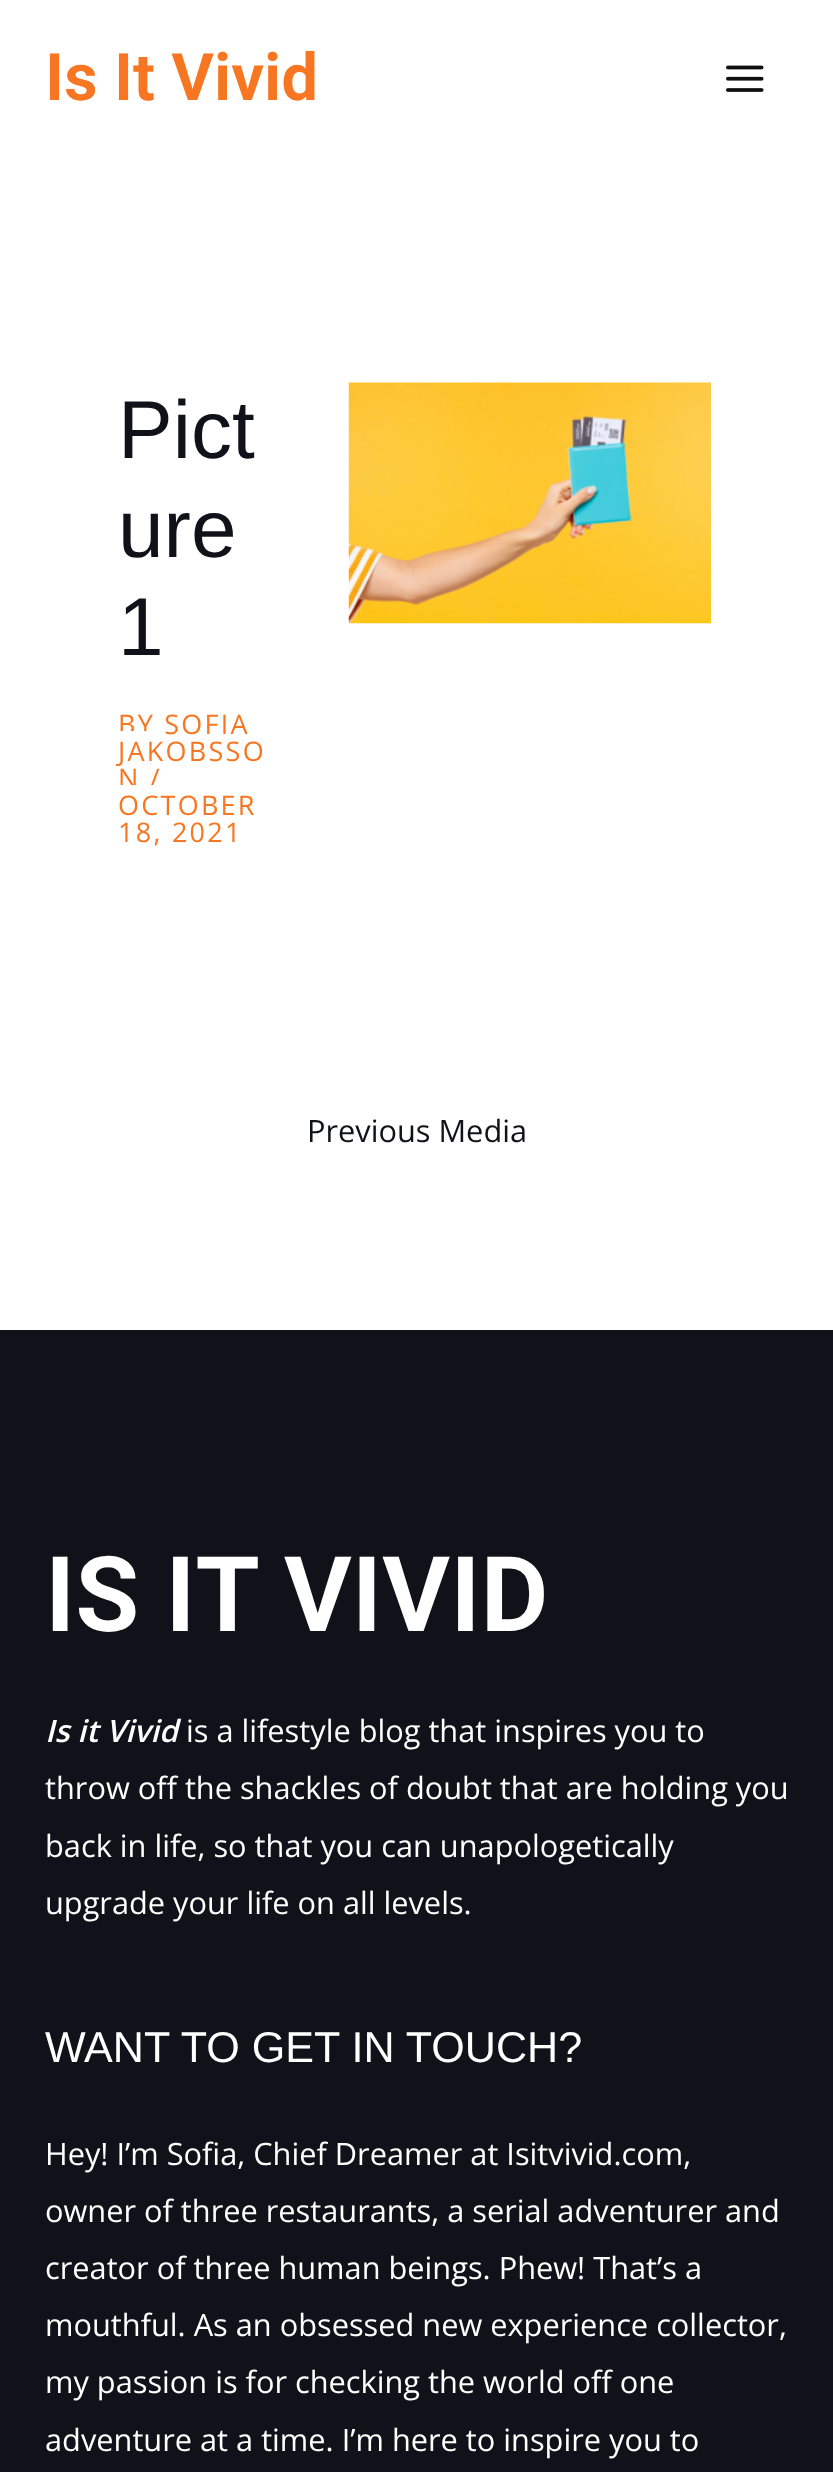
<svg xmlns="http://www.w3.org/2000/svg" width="833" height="2472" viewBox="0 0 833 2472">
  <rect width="100%" height="100%" fill="#fff"/>
  <image x="726" y="65" width="38" height="27" href="img/1.png"/>
  <image x="348" y="382" width="363" height="242" href="img/2.png"/>
  <path d="M0 1330h833v1142H0z" fill="#101119"/>
  <text x="45" y="100" font-family="Heebo" font-size="65.5" font-weight="600" fill="#f77621">Is It Vivid</text>
  <g font-family="Liberation Sans" font-size="82" fill="#101119">
    <text x="118" y="458">Pict</text>
    <text x="118" y="557">ure</text>
    <text x="118" y="655">1</text>
  </g>
  <g font-family="Open Sans" font-size="27" letter-spacing="2.25" fill="#f77621">
    <text x="118" y="734">BY SOFIA</text>
    <text x="118" y="761">JAKOBSSO</text>
  </g>
  <path d="M120 731h27v3H120z" fill="#fff"/>
  <text x="118" y="788" font-family="Open Sans" font-size="27" letter-spacing="2.25" fill="#f77621">N /</text>
  <path d="M122 785H257V824H122C119 824 117 822 117 819V790C117 787 119 785 122 785Z" fill="#fff"/>
  <g font-family="Open Sans" font-size="27" letter-spacing="2.25" fill="#f77621">
    <text x="118" y="815">OCTOBER</text>
    <text x="118" y="842">18, 2021</text>
  </g>
  <text x="307" y="1142" font-family="Open Sans" font-size="30.75" fill="#101119">Previous Media</text>
  <text x="45" y="1631" font-family="Heebo" font-size="104.5" font-weight="600" fill="#fff">IS IT VIVID</text>
  <text x="45" y="1742" font-family="Open Sans" font-size="30.75" font-weight="600" font-style="italic" fill="#fff">Is it Vivid</text>
  <g font-family="Open Sans" font-size="30.75" fill="#fff">
    <text x="186" y="1742">is a lifestyle blog that inspires you to</text>
    <text x="45" y="1799">throw off the shackles of doubt that are holding you</text>
    <text x="45" y="1857">back in life, so that you can unapologetically</text>
    <text x="45" y="1914">upgrade your life on all levels.</text>
  </g>
  <text x="45" y="2062" font-family="Liberation Sans" font-size="43.1" fill="#fff">WANT TO GET IN TOUCH?</text>
  <g font-family="Open Sans" font-size="30.75" fill="#fff">
    <text x="45" y="2165">Hey! I’m Sofia, Chief Dreamer at Isitvivid.com,</text>
    <text x="45" y="2222">owner of three restaurants, a serial adventurer and</text>
    <text x="45" y="2279">creator of three human beings. Phew! That’s a</text>
    <text x="45" y="2336">mouthful. As an obsessed new experience collector,</text>
    <text x="45" y="2393">my passion is for checking the world off one</text>
    <text x="45" y="2451">adventure at a time. I’m here to inspire you to</text>
  </g>
</svg>
